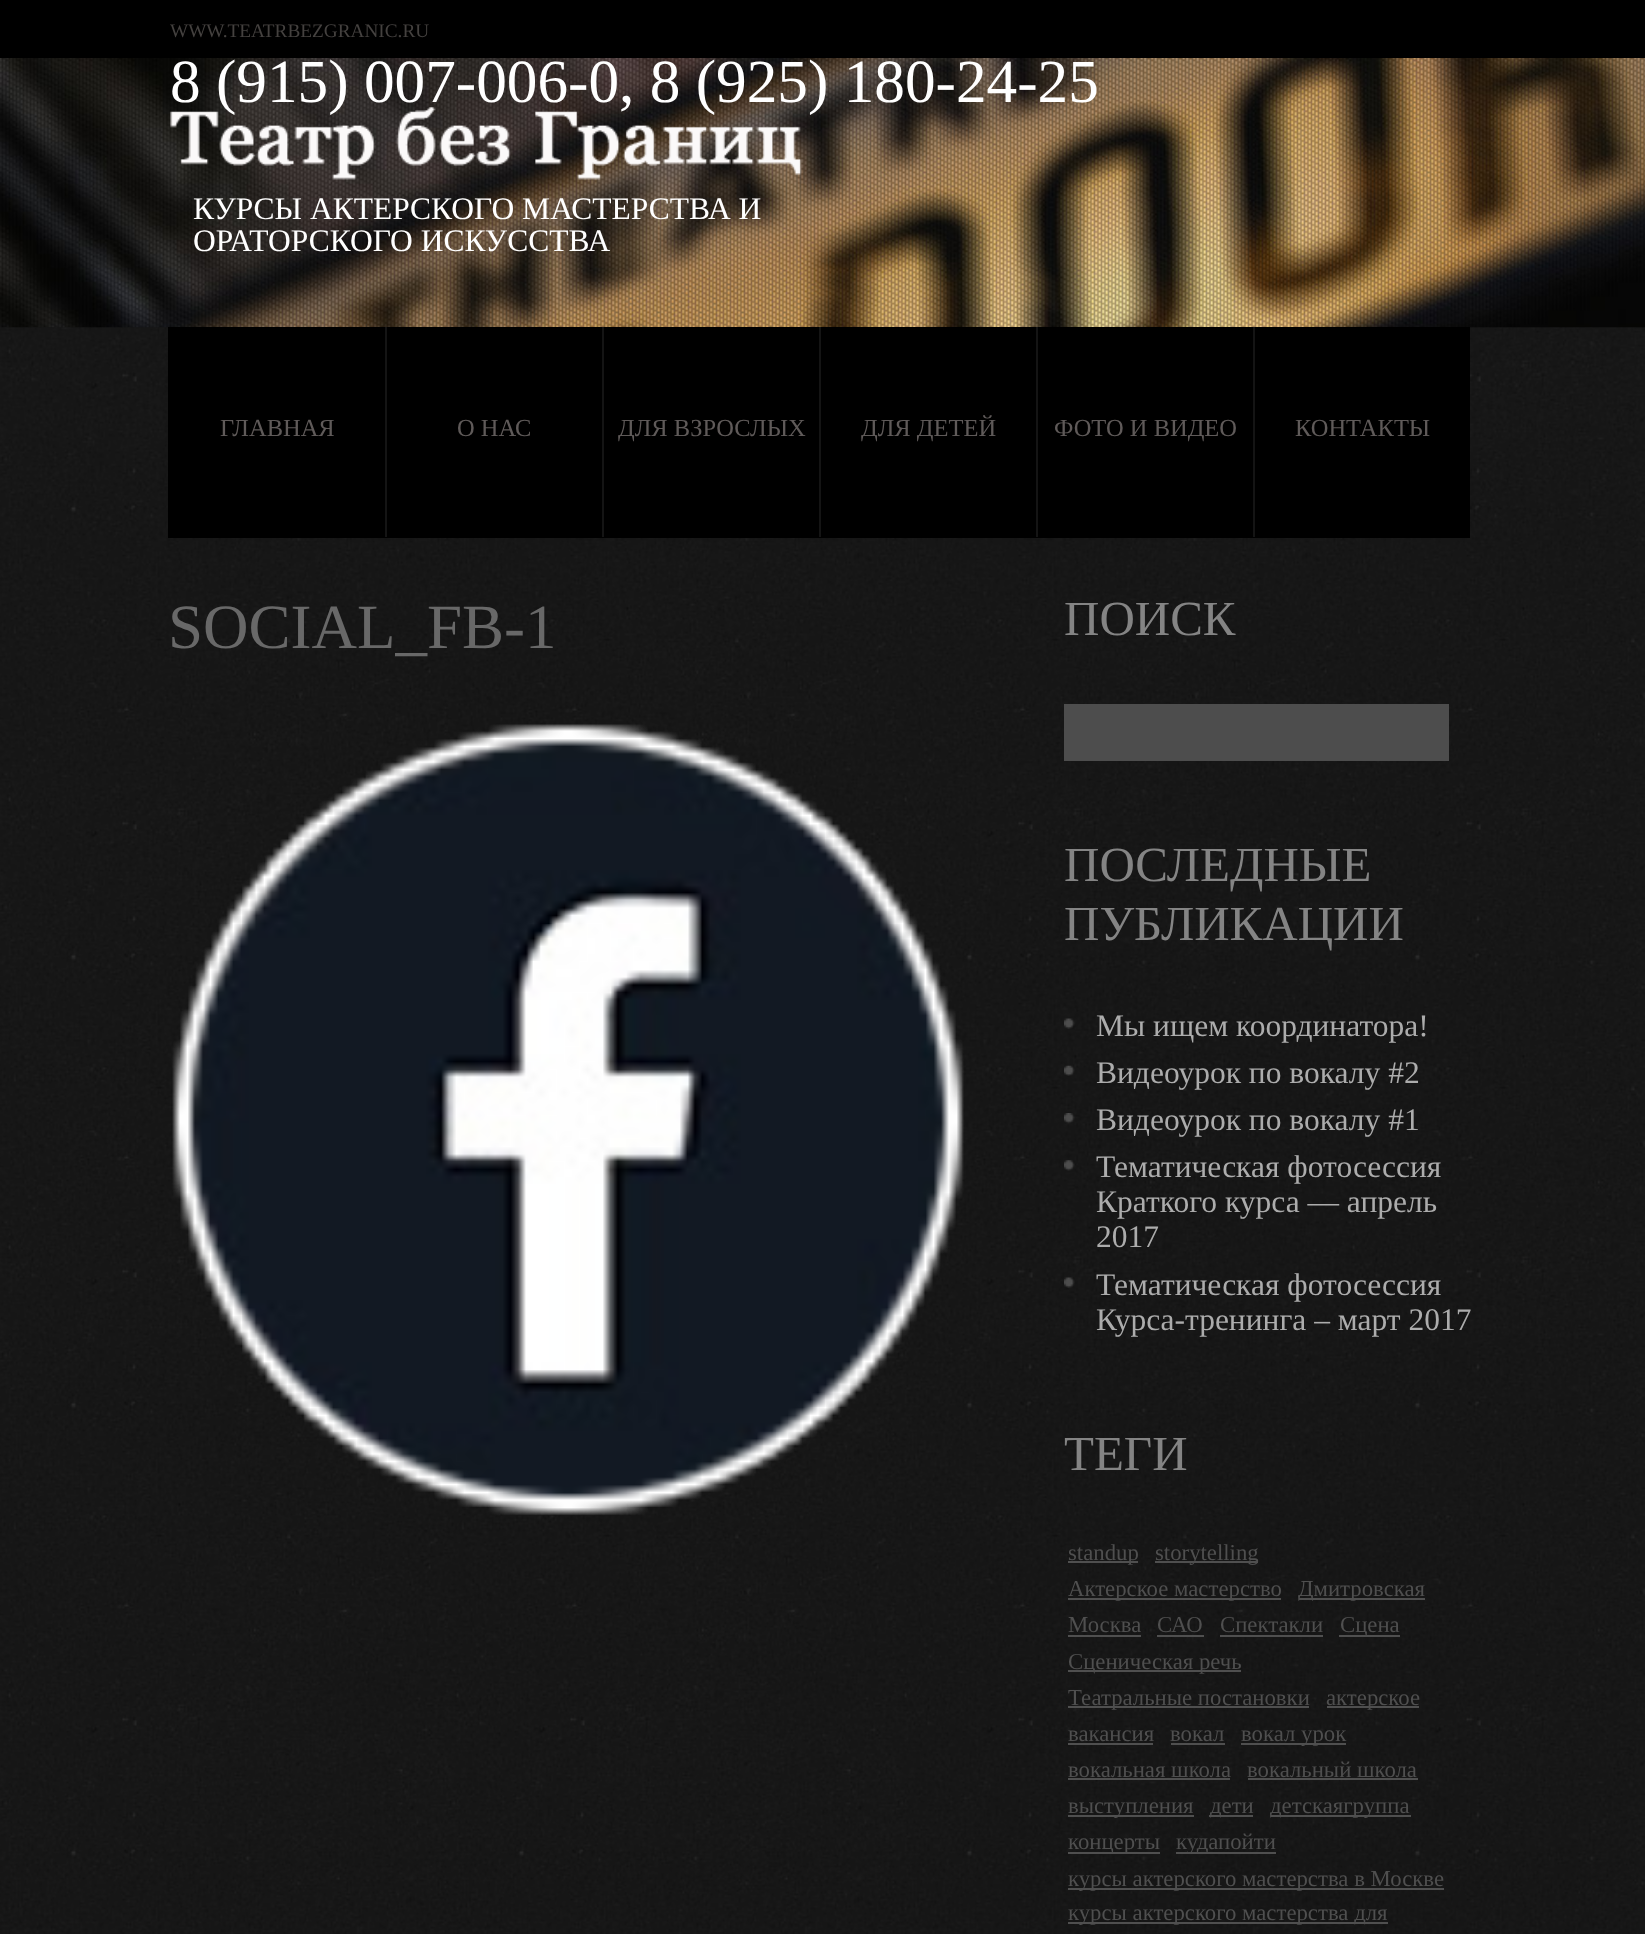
<svg xmlns="http://www.w3.org/2000/svg" width="1645" height="1934" viewBox="0 0 1645 1934">
  <rect width="100%" height="100%" fill="#fff"/>
  <image x="0" y="58" width="1645" height="270" href="img/1.png"/>
  <path d="M0 0h1645v58H0z" fill="#000"/>
  <image x="0" y="327" width="1645" height="1607" href="img/3.png"/>
  <path d="M168 327h1302v209H168z" fill="#000"/>
  <path d="M168 536h1302v2H168z" fill="#000"/>
  <path d="M385 327h2v210H385z" fill="#141414"/>
  <path d="M602 327h2v210H602z" fill="#141414"/>
  <path d="M819 327h2v210H819z" fill="#141414"/>
  <path d="M1036 327h2v210H1036z" fill="#141414"/>
  <path d="M1253 327h2v210H1253z" fill="#141414"/>
  <image x="172" y="724" width="792" height="791" href="img/4.png"/>
  <path d="M1064 704h385v57H1064z" fill="#4d4d4d"/>
  <image x="1064" y="1018" width="11" height="11" href="img/5.png"/>
  <image x="1064" y="1065" width="11" height="11" href="img/6.png"/>
  <image x="1064" y="1113" width="11" height="11" href="img/7.png"/>
  <image x="1064" y="1160" width="11" height="11" href="img/8.png"/>
  <image x="1064" y="1277" width="11" height="11" href="img/9.png"/>
  <path d="M1068 1561h70v2H1068z" fill="#4f4f4f"/>
  <path d="M1155 1561h103v2H1155z" fill="#4f4f4f"/>
  <path d="M1068 1598h213v2H1068z" fill="#4f4f4f"/>
  <path d="M1299 1598h126v2H1299z" fill="#4f4f4f"/>
  <path d="M1068 1635h73v2H1068z" fill="#4f4f4f"/>
  <path d="M1157 1635h47v2H1157z" fill="#4f4f4f"/>
  <path d="M1220 1635h103v2H1220z" fill="#4f4f4f"/>
  <path d="M1339 1635h61v2H1339z" fill="#4f4f4f"/>
  <path d="M1068 1670h173v2H1068z" fill="#4f4f4f"/>
  <path d="M1068 1706h241v2H1068z" fill="#4f4f4f"/>
  <path d="M1327 1706h92v2H1327z" fill="#4f4f4f"/>
  <path d="M1068 1743h85v2H1068z" fill="#4f4f4f"/>
  <path d="M1171 1743h54v2H1171z" fill="#4f4f4f"/>
  <path d="M1241 1743h105v2H1241z" fill="#4f4f4f"/>
  <path d="M1068 1778h162v2H1068z" fill="#4f4f4f"/>
  <path d="M1248 1778h170v2H1248z" fill="#4f4f4f"/>
  <path d="M1068 1815h126v2H1068z" fill="#4f4f4f"/>
  <path d="M1209 1815h44v2H1209z" fill="#4f4f4f"/>
  <path d="M1271 1815h140v2H1271z" fill="#4f4f4f"/>
  <path d="M1068 1852h92v2H1068z" fill="#4f4f4f"/>
  <path d="M1176 1852h100v2H1176z" fill="#4f4f4f"/>
  <path d="M1068 1888h376v2H1068z" fill="#4f4f4f"/>
  <path d="M1068 1922h320v2H1068z" fill="#4f4f4f"/>
  <text x="170" y="37" font-family="Liberation Serif" font-size="19.25" fill="#44413f">WWW.TEATRBEZGRANIC.RU</text>
  <text x="170" y="102" font-family="Liberation Serif" font-size="61.25" fill="#fff">8 (915) 007-006-0, 8 (925) 180-24-25</text>
  <image x="170" y="107" width="632" height="73" href="img/2.png"/>
  <g font-family="Liberation Serif" font-size="31.5" fill="#fff">
    <text x="193" y="219">КУРСЫ АКТЕРСКОГО МАСТЕРСТВА И</text>
    <text x="193" y="251">ОРАТОРСКОГО ИСКУССТВА</text>
  </g>
  <g font-family="Liberation Serif" font-size="24.5" fill="#5f5a59">
    <text x="220" y="436">ГЛАВНАЯ</text>
    <text x="457" y="436">О НАС</text>
    <text x="618" y="436">ДЛЯ ВЗРОСЛЫХ</text>
    <text x="861" y="436">ДЛЯ ДЕТЕЙ</text>
    <text x="1054" y="436">ФОТО И ВИДЕО</text>
    <text x="1295" y="436">КОНТАКТЫ</text>
  </g>
  <text x="168" y="648" font-family="Liberation Serif" font-size="63" fill="#686868">SOCIAL_FB-1</text>
  <g font-family="Liberation Serif" font-size="49" fill="#848484">
    <text x="1064" y="635">ПОИСК</text>
    <text x="1064" y="881">ПОСЛЕДНЫЕ</text>
    <text x="1064" y="940">ПУБЛИКАЦИИ</text>
  </g>
  <g font-family="Liberation Serif" font-size="31.5" fill="#acacac">
    <text x="1096" y="1036">Мы ищем координатора!</text>
    <text x="1096" y="1083">Видеоурок по вокалу #2</text>
    <text x="1096" y="1130">Видеоурок по вокалу #1</text>
    <text x="1096" y="1177">Тематическая фотосессия</text>
    <text x="1096" y="1212">Краткого курса — апрель</text>
    <text x="1096" y="1247">2017</text>
    <text x="1096" y="1295">Тематическая фотосессия</text>
    <text x="1096" y="1330">Курса-тренинга – март 2017</text>
  </g>
  <text x="1064" y="1470" font-family="Liberation Serif" font-size="49" fill="#848484">ТЕГИ</text>
  <g font-family="Liberation Serif" font-size="22.75" fill="#4f4f4f">
    <text x="1068" y="1560">standup</text>
    <text x="1155" y="1560">storytelling</text>
    <text x="1068" y="1596">Актерское мастерство</text>
    <text x="1298" y="1596">Дмитровская</text>
    <text x="1068" y="1632">Москва</text>
    <text x="1157" y="1632">САО</text>
    <text x="1220" y="1632">Спектакли</text>
    <text x="1340" y="1632">Сцена</text>
    <text x="1068" y="1669">Сценическая речь</text>
    <text x="1068" y="1705">Театральные постановки</text>
    <text x="1326" y="1705">актерское</text>
    <text x="1068" y="1741">вакансия</text>
    <text x="1170" y="1741">вокал</text>
    <text x="1241" y="1741">вокал урок</text>
    <text x="1068" y="1777">вокальная школа</text>
    <text x="1247" y="1777">вокальный школа</text>
    <text x="1068" y="1813">выступления</text>
    <text x="1210" y="1813">дети</text>
    <text x="1270" y="1813">детскаягруппа</text>
    <text x="1068" y="1849">концерты</text>
    <text x="1176" y="1849">кудапойти</text>
    <text x="1068" y="1886">курсы актерского мастерства в Москве</text>
    <text x="1068" y="1920">курсы актерского мастерства для</text>
  </g>
</svg>
